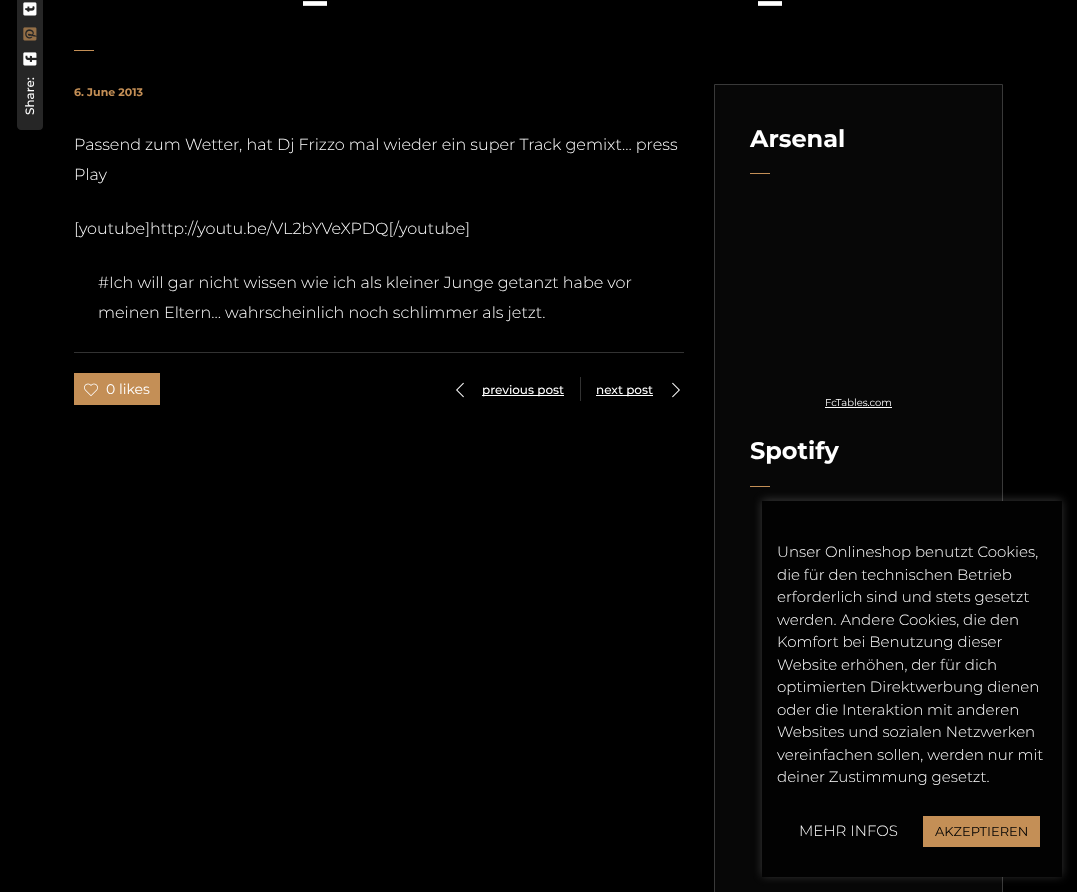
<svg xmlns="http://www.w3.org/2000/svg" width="1077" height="892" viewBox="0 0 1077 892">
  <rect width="100%" height="100%" fill="#000"/>
  <path d="M74 50h20v1H74z" fill="#c48f56"/>
  <path d="M17 126V-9C17-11 19-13 21-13H39C42-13 43-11 43-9V126C43 128 42 130 39 130H21C19 130 17 128 17 126Z" fill="#262626"/>
  <image x="23" y="2" width="14" height="14" href="img/1.png"/>
  <image x="23" y="27" width="14" height="14" href="img/2.png"/>
  <image x="23" y="52" width="14" height="14" href="img/3.png"/>
  <path d="M74 352h610v1H74z" fill="#323232"/>
  <path d="M74 373h86v32H74z" fill="#c48f56"/>
  <image x="84" y="383" width="14" height="14" href="img/4.png"/>
  <image x="456" y="382" width="8" height="16" href="img/5.png"/>
  <path d="M482 395h82v1H482z" fill="#fff"/>
  <path d="M580 377h1v24H580z" fill="#323232"/>
  <path d="M596 395h57v1H596z" fill="#fff"/>
  <image x="672" y="382" width="8" height="16" href="img/6.png"/>
  <path d="M714.5 84.5h288v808H714.5z" fill="#070707" stroke="#393939"/>
  <path d="M750 173h20v1H750z" fill="#c48f56"/>
  <path d="M825 407h67v1H825z" fill="#fff"/>
  <path d="M750 486h20v1H750z" fill="#c48f56"/>
  <path d="M762 500h300v376H762z" fill="#acabab4d" filter="blur(5px)"/>
  <path d="M762 501h300v376H762z" fill="#020202"/>
  <path d="M923 816h117v31H923z" fill="#c48f56"/>
  <g font-family="Montserrat" font-size="48" font-weight="bold" fill="#fff">
    <text x="303" y="17">–</text>
    <text x="758" y="17">–</text>
  </g>
  <text x="34" y="115" transform="rotate(-90 34 115)" font-family="Montserrat" font-size="12" font-weight="500" fill="#fff">Share:</text>
  <text x="74" y="96" font-family="Montserrat" font-size="11" font-weight="bold" fill="#c48f56">6. June 2013</text>
  <g font-family="Montserrat" font-size="16" font-weight="300" fill="#fff">
    <text x="74" y="150">Passend zum Wetter, hat Dj Frizzo mal wieder ein super Track gemixt… press</text>
    <text x="74" y="180">Play</text>
    <text x="74" y="234">[youtube]http://youtu.be/VL2bYVeXPDQ[/youtube]</text>
    <text x="98" y="288">#Ich will gar nicht wissen wie ich als kleiner Junge getanzt habe vor</text>
    <text x="98" y="318">meinen Eltern… wahrscheinlich noch schlimmer als jetzt.</text>
  </g>
  <text x="106" y="394" font-family="Montserrat" font-size="14" fill="#fff">0 likes</text>
  <g font-family="Montserrat" font-size="12" font-weight="500" fill="#fff">
    <text x="482" y="394">previous post</text>
    <text x="596" y="394">next post</text>
  </g>
  <text x="750" y="147" font-family="Montserrat" font-size="24" font-weight="bold" fill="#fff">Arsenal</text>
  <text x="825" y="406" font-family="Montserrat" font-size="10" fill="#fff">FcTables.com</text>
  <text x="750" y="459" font-family="Montserrat" font-size="24" font-weight="bold" fill="#fff">Spotify</text>
  <g font-family="Montserrat" font-size="15" font-weight="300" fill="#fff">
    <text x="777" y="557">Unser Onlineshop benutzt Cookies,</text>
    <text x="777" y="580">die für den technischen Betrieb</text>
    <text x="777" y="602">erforderlich sind und stets gesetzt</text>
    <text x="777" y="625">werden. Andere Cookies, die den</text>
    <text x="777" y="647">Komfort bei Benutzung dieser</text>
    <text x="777" y="670">Website erhöhen, der für dich</text>
    <text x="777" y="692">optimierten Direktwerbung dienen</text>
    <text x="777" y="715">oder die Interaktion mit anderen</text>
    <text x="777" y="737">Websites und sozialen Netzwerken</text>
    <text x="777" y="760">vereinfachen sollen, werden nur mit</text>
    <text x="777" y="782">deiner Zustimmung gesetzt.</text>
    <text x="799" y="836">MEHR INFOS</text>
  </g>
  <text x="935" y="836" font-family="Montserrat" font-size="13" fill="#020202">AKZEPTIEREN</text>
</svg>
